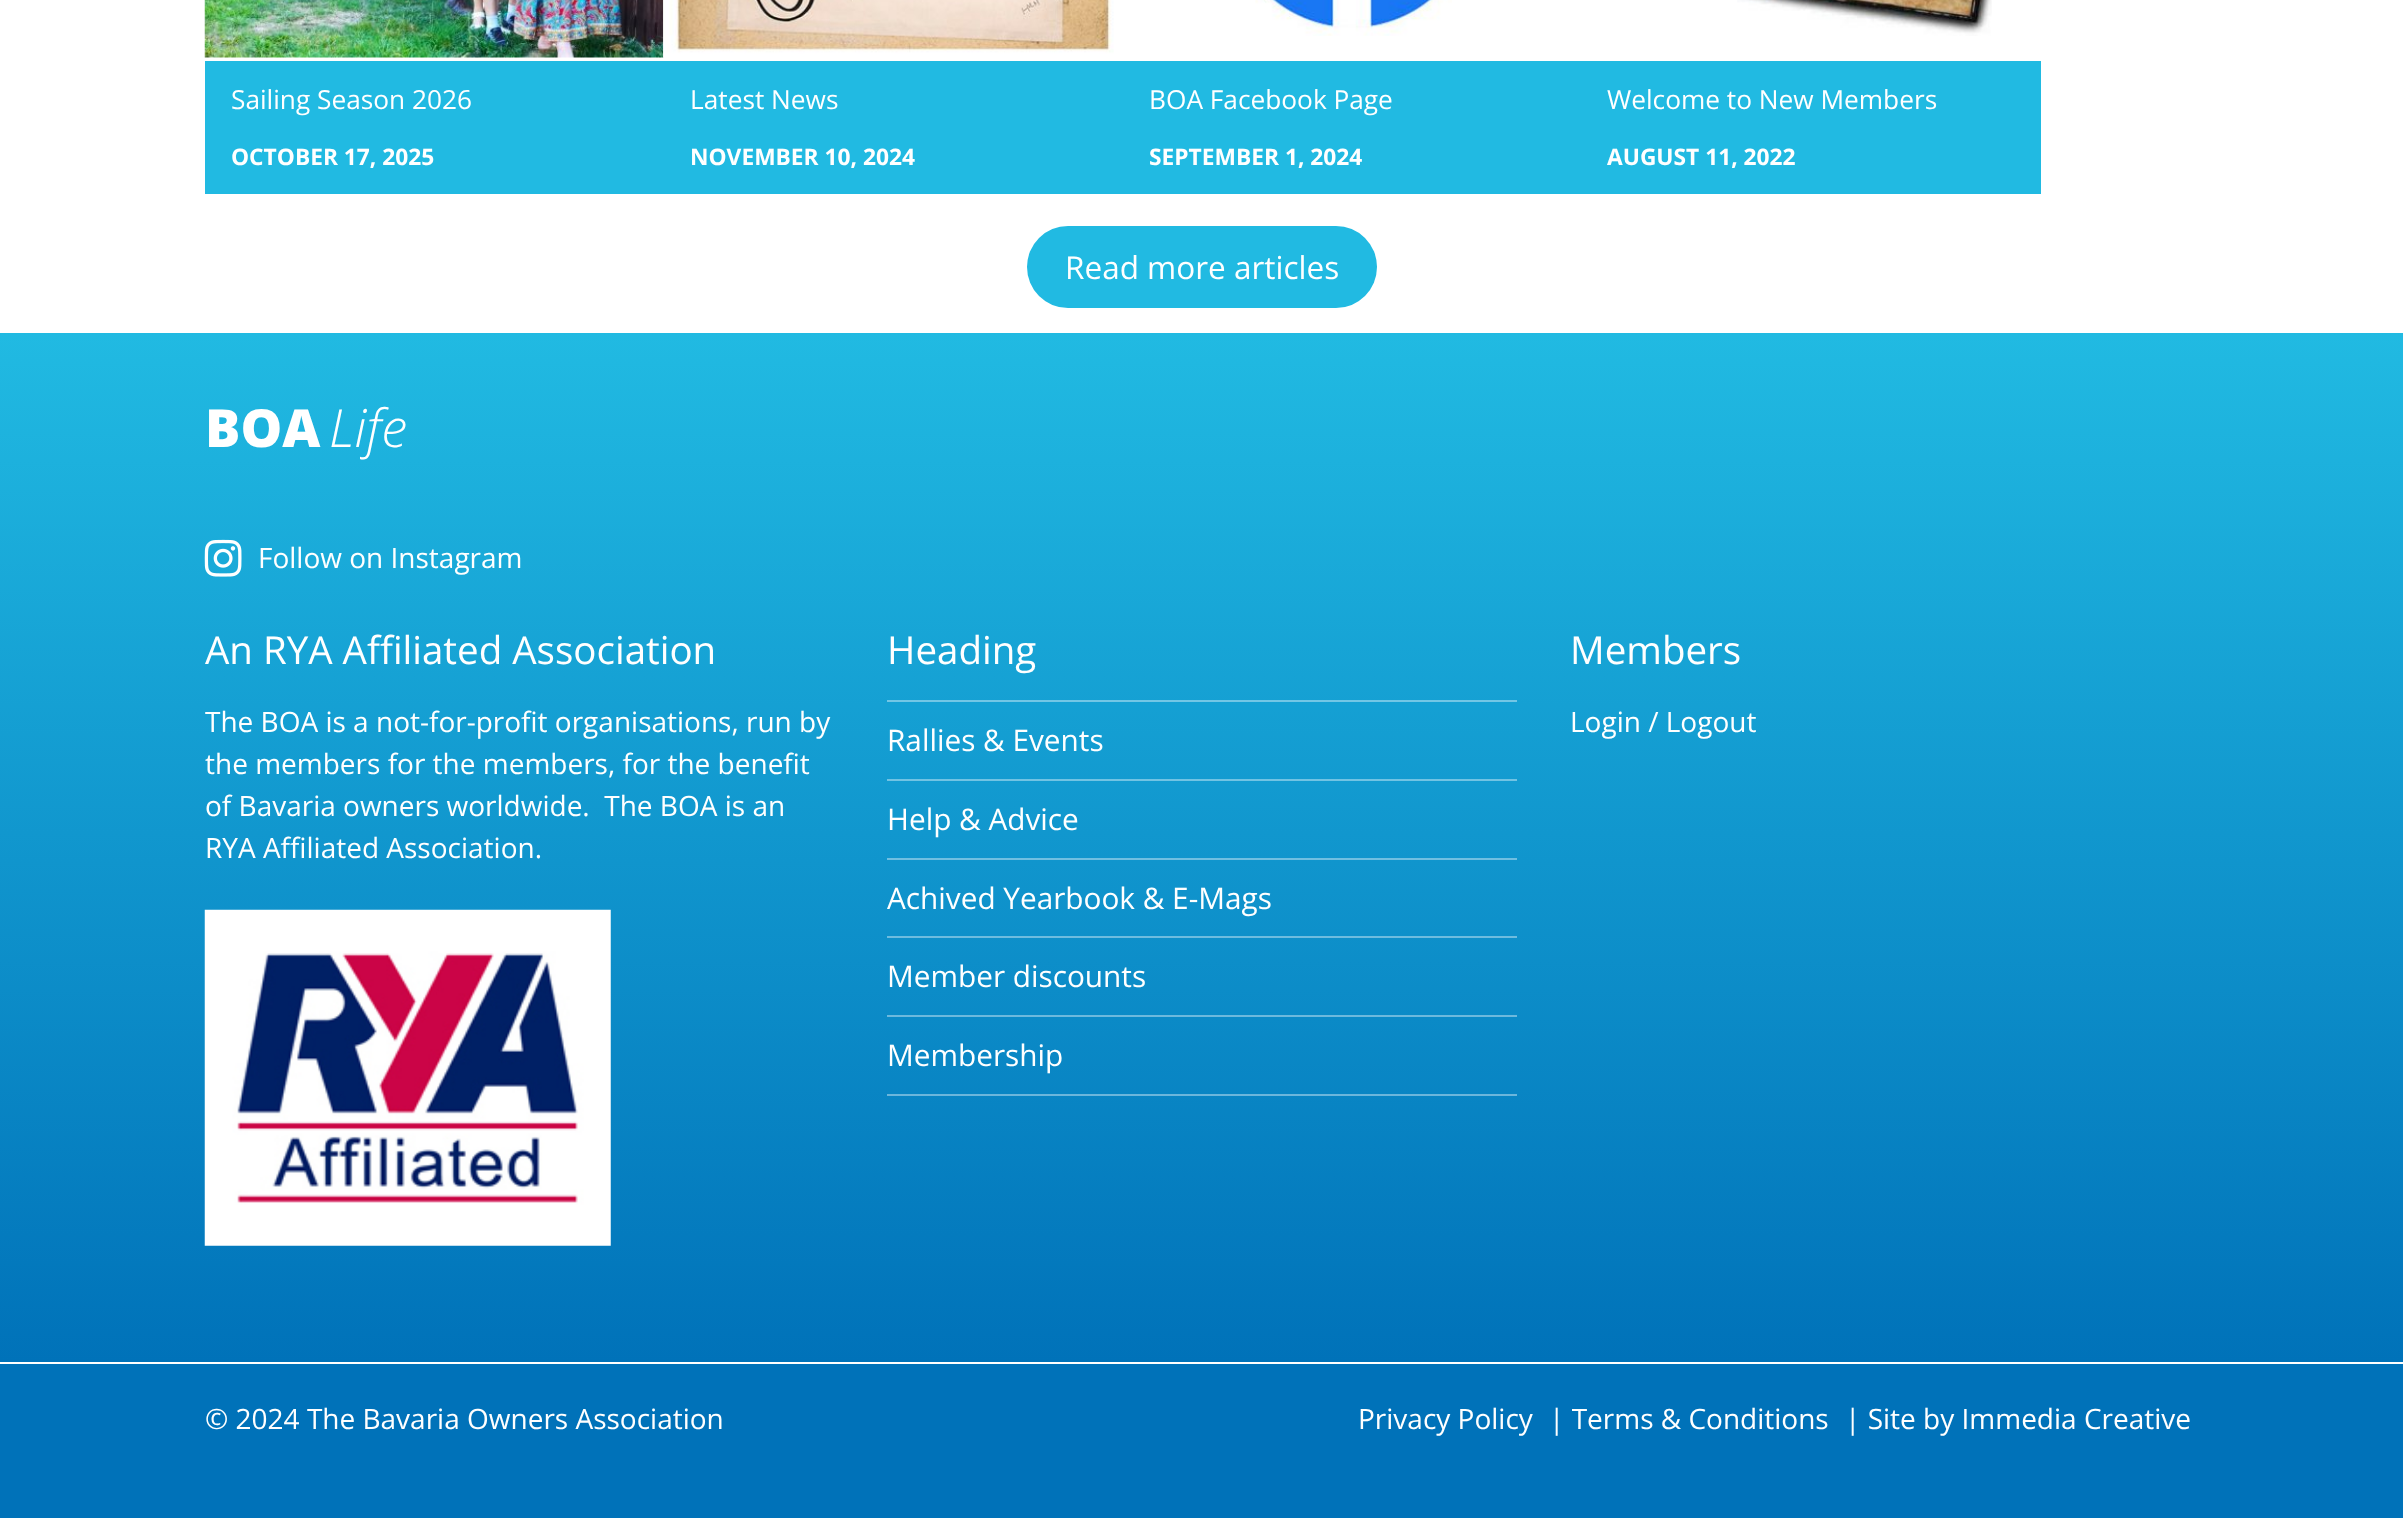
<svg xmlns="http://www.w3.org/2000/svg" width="2403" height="1518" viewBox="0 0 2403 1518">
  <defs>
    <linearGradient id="g1" gradientUnits="userSpaceOnUse" x1="1202" y1="1362" x2="1202" y2="333"><stop offset="0" stop-color="#0072b9"/><stop offset="1" stop-color="#21bae2"/></linearGradient>
  </defs>
  <rect width="100%" height="100%" fill="#fff"/>
  <image x="204" y="0" width="460" height="58" href="img/1.png"/>
  <path d="M205 61h458v133H205z" fill="#21bae2"/>
  <image x="663" y="0" width="451" height="58" href="img/2.png"/>
  <path d="M663 61h459v133H663z" fill="#21bae2"/>
  <image x="1255" y="0" width="197" height="36" href="img/3.png"/>
  <path d="M1122 61h460v133H1122z" fill="#21bae2"/>
  <image x="1737" y="0" width="255" height="36" href="img/4.png"/>
  <path d="M1582 61h459v133H1582z" fill="#21bae2"/>
  <rect x="1027" y="226" width="350" height="82" rx="41" fill="#21bae2"/>
  <path d="M0 333h2403v1029H0z" fill="url(#g1)"/>
  <image x="204" y="539" width="38" height="38" href="img/5.png"/>
  <image x="204" y="909" width="407" height="337" href="img/6.png"/>
  <path d="M887 700h630v2H887z" fill="#73c6e5"/>
  <path d="M887 779h630v2H887z" fill="#71c3e3"/>
  <path d="M887 858h630v2H887z" fill="#70bfe1"/>
  <path d="M887 936h630v2H887z" fill="#6ebcdf"/>
  <path d="M887 1015h630v2H887z" fill="#6db9dd"/>
  <path d="M887 1094h630v2H887z" fill="#6bb6dc"/>
  <path d="M0 1364h2403v154H0z" fill="#0072b9"/>
  <text x="231" y="109" font-family="Open Sans" font-size="26.25" fill="#fff">Sailing Season 2026</text>
  <text x="231" y="165" font-family="Open Sans" font-size="22.75" font-weight="bold" fill="#fff">OCTOBER 17, 2025</text>
  <text x="690" y="109" font-family="Open Sans" font-size="26.25" fill="#fff">Latest News</text>
  <text x="690" y="165" font-family="Open Sans" font-size="22.75" font-weight="bold" fill="#fff">NOVEMBER 10, 2024</text>
  <text x="1149" y="109" font-family="Open Sans" font-size="26.25" fill="#fff">BOA Facebook Page</text>
  <text x="1149" y="165" font-family="Open Sans" font-size="22.75" font-weight="bold" fill="#fff">SEPTEMBER 1, 2024</text>
  <text x="1607" y="109" font-family="Open Sans" font-size="26.25" fill="#fff">Welcome to New Members</text>
  <text x="1607" y="165" font-family="Open Sans" font-size="22.75" font-weight="bold" fill="#fff">AUGUST 11, 2022</text>
  <text x="1065" y="279" font-family="Open Sans" font-size="31.5" fill="#fff">Read more articles</text>
  <text x="205" y="447" font-family="Open Sans" font-size="52.5" font-weight="800" fill="#fff">BOA</text>
  <text x="329" y="447" font-family="Open Sans" font-size="52.5" font-weight="300" font-style="italic" fill="#fff">Life</text>
  <text x="258" y="568" font-family="Open Sans" font-size="28" fill="#fff">Follow on Instagram</text>
  <text x="205" y="664" font-family="Open Sans" font-size="38.5" fill="#fff">An RYA Affiliated Association</text>
  <g font-family="Open Sans" font-size="28" fill="#fff">
    <text x="205" y="732">The BOA is a not-for-profit organisations, run by</text>
    <text x="205" y="774">the members for the members, for the benefit</text>
    <text x="205" y="816" xml:space="preserve">of Bavaria owners worldwide.  The BOA is an</text>
    <text x="205" y="858">RYA Affiliated Association.</text>
  </g>
  <text x="887" y="664" font-family="Open Sans" font-size="38.5" fill="#fff">Heading</text>
  <g font-family="Open Sans" font-size="29.75" fill="#fff">
    <text x="887" y="751">Rallies &amp; Events</text>
    <text x="887" y="830">Help &amp; Advice</text>
    <text x="887" y="909">Achived Yearbook &amp; E-Mags</text>
    <text x="887" y="987">Member discounts</text>
    <text x="887" y="1066">Membership</text>
  </g>
  <text x="1570" y="664" font-family="Open Sans" font-size="38.5" fill="#fff">Members</text>
  <g font-family="Open Sans" font-size="28" fill="#fff">
    <text x="1570" y="732">Login / Logout</text>
    <text x="205" y="1429">© 2024 The Bavaria Owners Association</text>
    <text x="1358" y="1429">Privacy Policy</text>
    <text x="1549" y="1429">| Terms &amp; Conditions</text>
    <text x="1845" y="1429">| Site by Immedia Creative</text>
  </g>
</svg>
